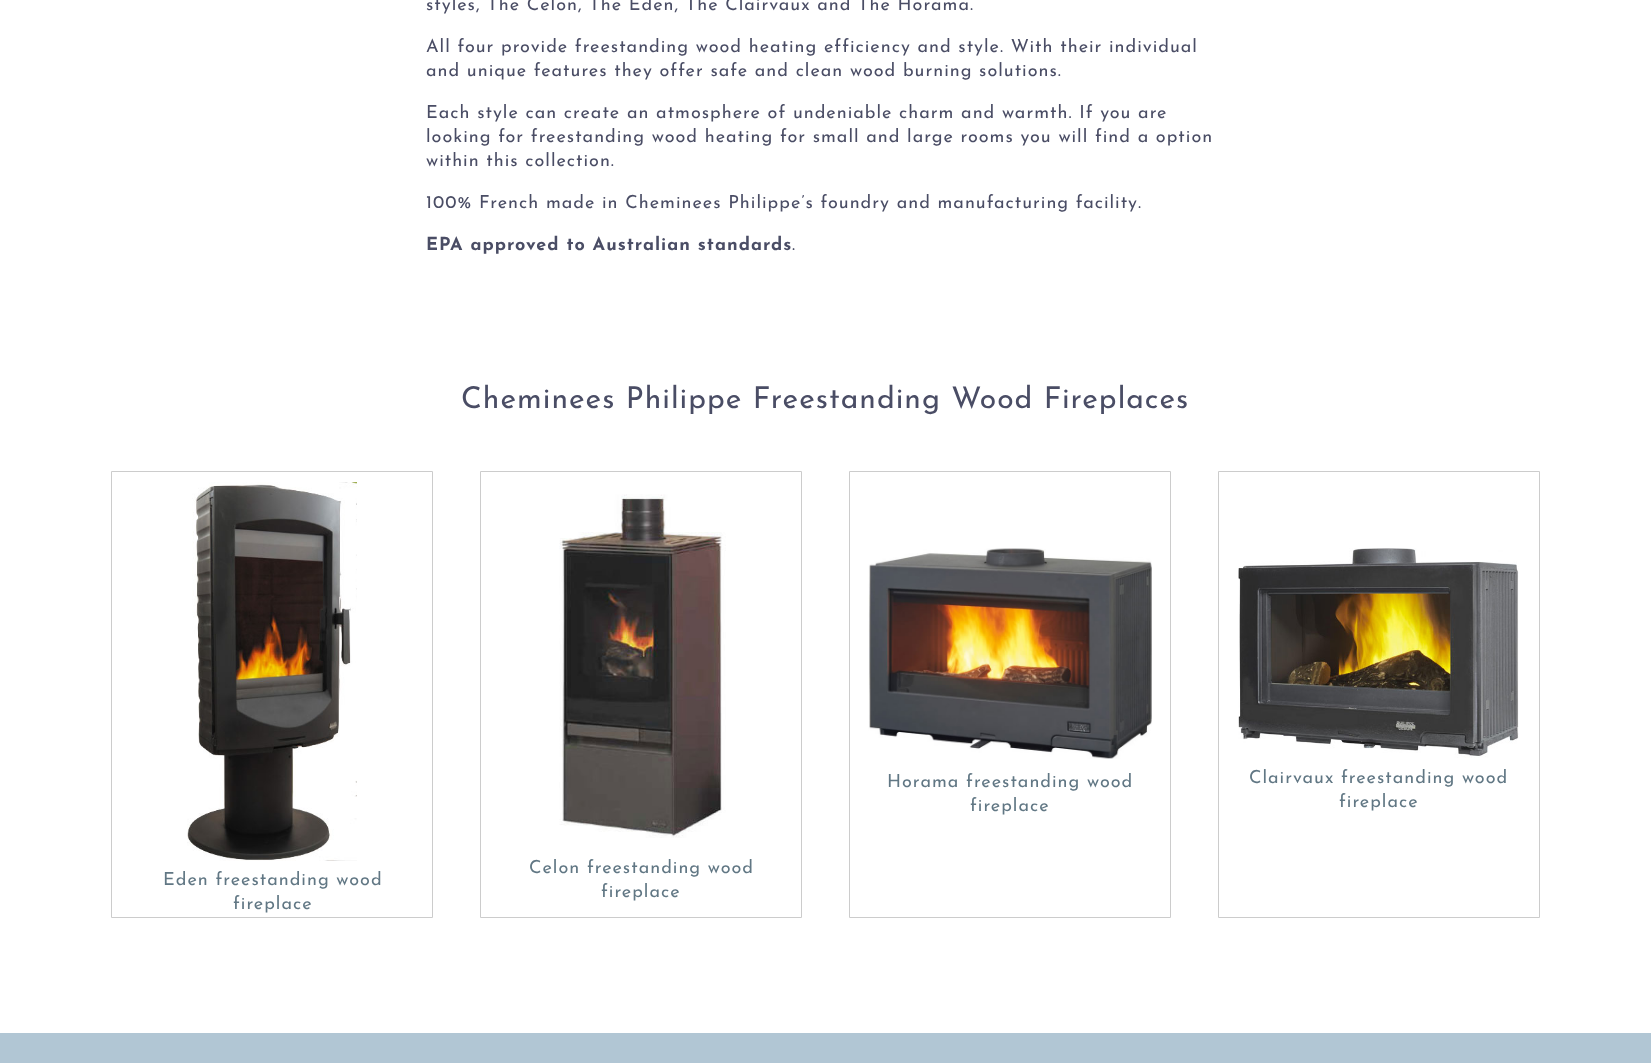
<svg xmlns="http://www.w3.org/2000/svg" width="1651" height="1063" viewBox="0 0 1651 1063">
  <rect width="100%" height="100%" fill="#fff"/>
  <path d="M849.5 471.5h321v446H849.5z" fill="none" stroke="#ccc"/>
  <image x="868" y="548" width="284" height="211" href="img/1.png"/>
  <path d="M1218.5 471.5h321v446H1218.5z" fill="none" stroke="#ccc"/>
  <image x="1238" y="548" width="281" height="210" href="img/2.png"/>
  <path d="M111.5 471.5h321v446H111.5z" fill="none" stroke="#ccc"/>
  <image x="187" y="482" width="170" height="379" href="img/3.png"/>
  <path d="M480.5 471.5h321v446H480.5z" fill="none" stroke="#ccc"/>
  <image x="559" y="494" width="167" height="344" href="img/4.png"/>
  <path d="M0 1033h1651v30H0z" fill="#b1c6d4"/>
  <g font-family="Josefin Sans" font-size="18" letter-spacing="1" fill="#4a4d65">
    <text x="426" y="10">styles, The Celon, The Eden, The Clairvaux and The Horama.</text>
    <text x="426" y="52">All four provide freestanding wood heating efficiency and style. With their individual</text>
    <text x="426" y="76">and unique features they offer safe and clean wood burning solutions.</text>
    <text x="426" y="118">Each style can create an atmosphere of undeniable charm and warmth. If you are</text>
    <text x="426" y="142">looking for freestanding wood heating for small and large rooms you will find a option</text>
    <text x="426" y="166">within this collection.</text>
    <text x="426" y="208">100% French made in Cheminees Philippe’s foundry and manufacturing facility.</text>
  </g>
  <text x="426" y="250" font-family="Josefin Sans" font-size="18" font-weight="bold" letter-spacing="1" fill="#4a4d65">EPA approved to Australian standards</text>
  <text x="792" y="250" font-family="Josefin Sans" font-size="18" letter-spacing="1" fill="#4a4d65">.</text>
  <text x="461" y="408" font-family="Josefin Sans" font-size="30" letter-spacing="1" fill="#4a4d65">Cheminees Philippe Freestanding Wood Fireplaces</text>
  <g font-family="Josefin Sans" font-size="18" letter-spacing="1" fill="#617784">
    <text x="887" y="787">Horama freestanding wood</text>
    <text x="970" y="811">fireplace</text>
    <text x="1249" y="783">Clairvaux freestanding wood</text>
    <text x="1339" y="807">fireplace</text>
    <text x="163" y="885">Eden freestanding wood</text>
    <text x="233" y="909">fireplace</text>
    <text x="529" y="873">Celon freestanding wood</text>
    <text x="601" y="897">fireplace</text>
  </g>
</svg>
